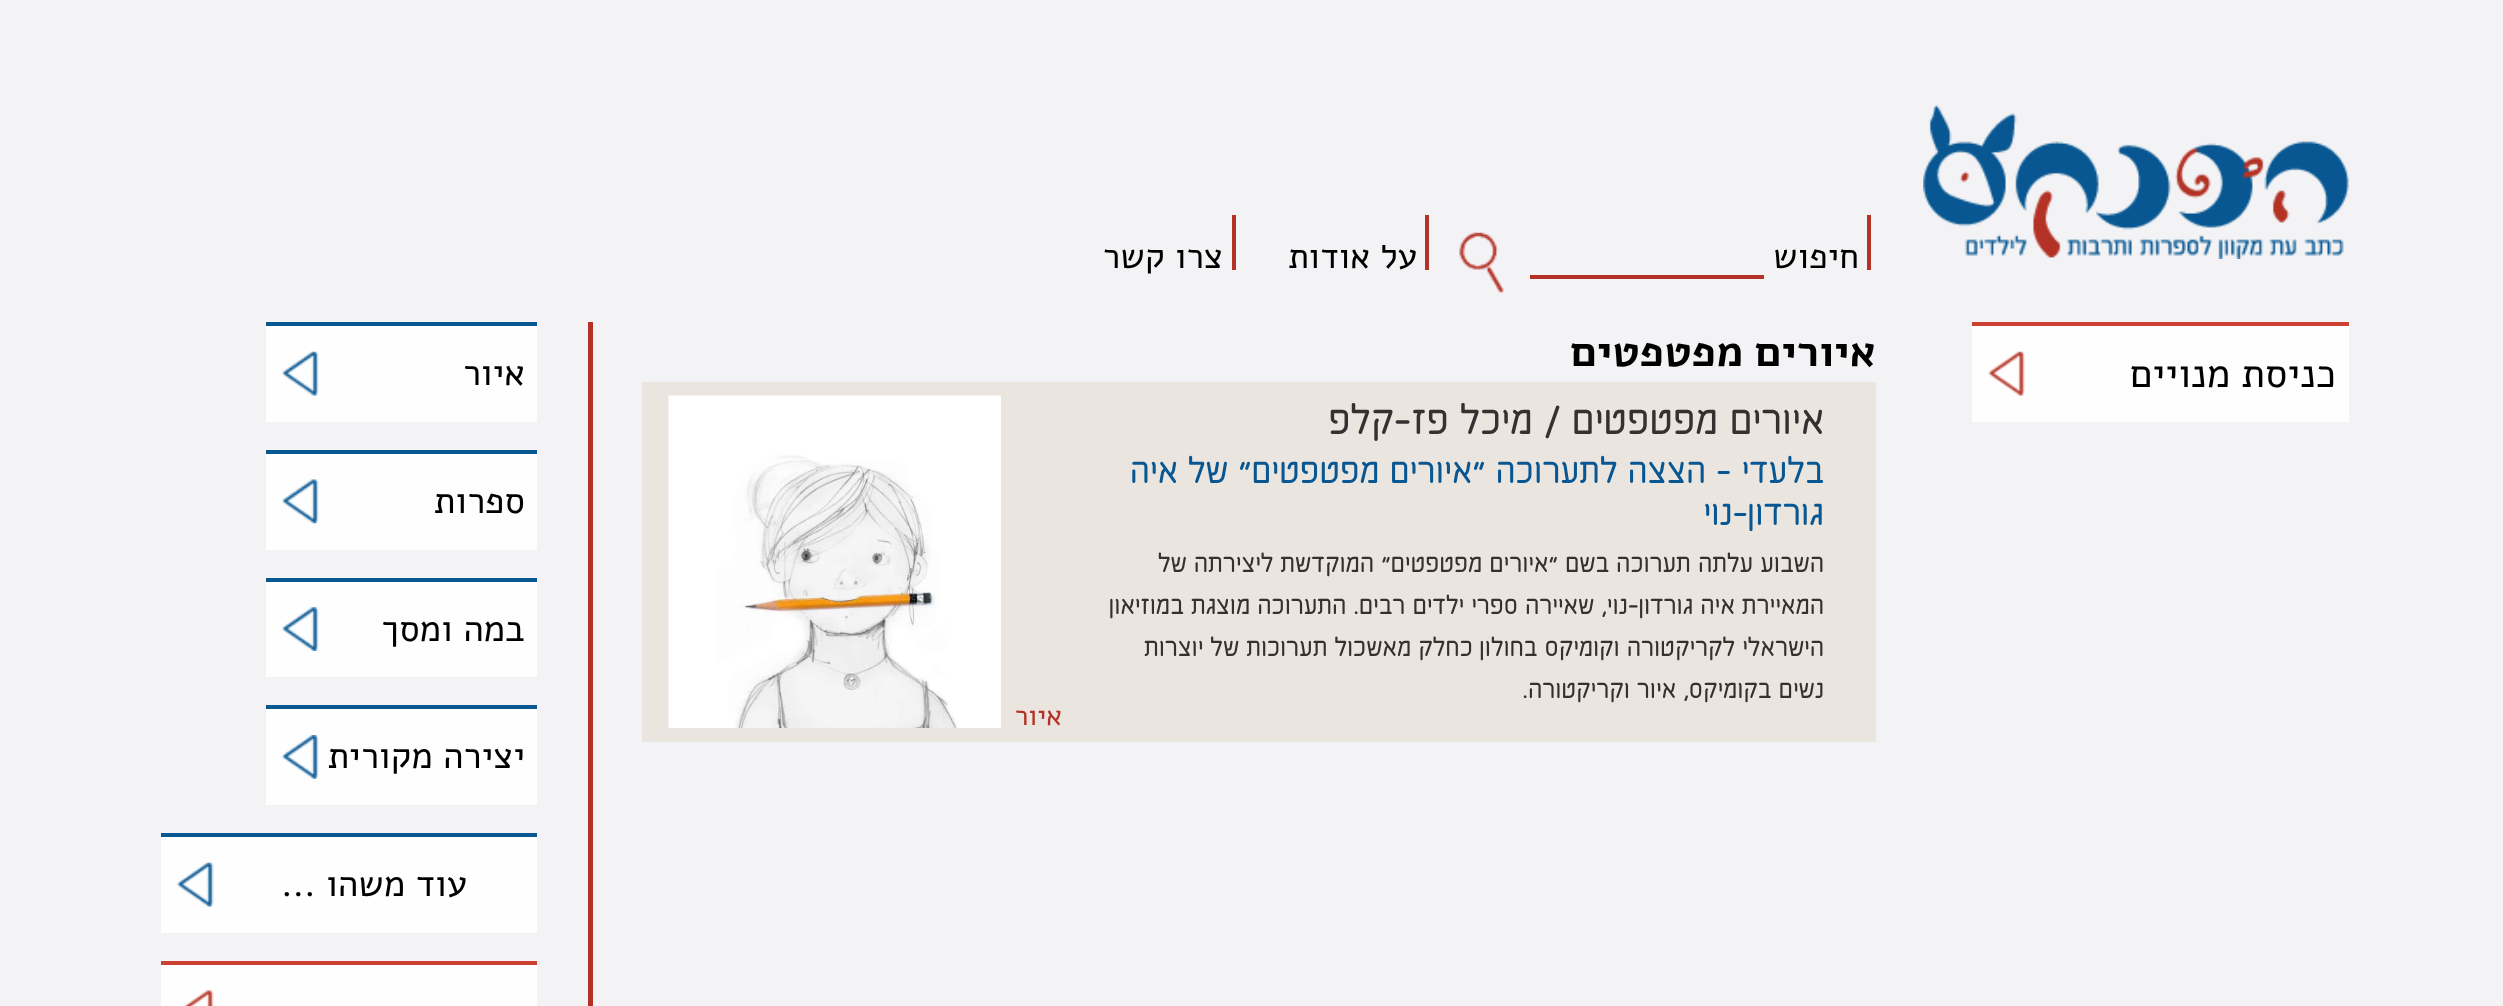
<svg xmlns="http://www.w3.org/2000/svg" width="2503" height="1006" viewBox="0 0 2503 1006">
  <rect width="100%" height="100%" fill="#f3f3f5"/>
  <image x="1923" y="105" width="426" height="154" href="img/1.png"/>
  <image x="1459" y="232" width="45" height="61" href="img/2.png"/>
  <path d="M1867 215h4v55H1867z" fill="#b33225"/>
  <path d="M1530 275h234v4H1530z" fill="#b33225"/>
  <path d="M1425 215h4v55H1425z" fill="#b33225"/>
  <path d="M1232 215h4v55H1232z" fill="#b33225"/>
  <path d="M1972 326h377v96H1972z" fill="#fefefe"/>
  <path d="M1972 322h377v4H1972z" fill="#cb4031"/>
  <image x="1988" y="351" width="37" height="45" href="img/3.png"/>
  <path d="M588 322h5v684H588z" fill="#b33225"/>
  <path d="M642 382h1234v360H642z" fill="#ebe5df"/>
  <image x="668" y="395" width="333" height="333" href="img/4.png"/>
  <path d="M266 326h271v96H266z" fill="#fefefe"/>
  <path d="M266 322h271v4H266z" fill="#085792"/>
  <image x="281" y="351" width="38" height="45" href="img/5.png"/>
  <path d="M266 454h271v96H266z" fill="#fefefe"/>
  <path d="M266 450h271v4H266z" fill="#085792"/>
  <image x="281" y="479" width="38" height="45" href="img/6.png"/>
  <path d="M266 582h271v95H266z" fill="#fefefe"/>
  <path d="M266 578h271v4H266z" fill="#085792"/>
  <image x="281" y="607" width="38" height="44" href="img/7.png"/>
  <path d="M266 709h271v96H266z" fill="#fefefe"/>
  <path d="M266 705h271v4H266z" fill="#085792"/>
  <image x="281" y="735" width="38" height="44" href="img/8.png"/>
  <path d="M161 837h376v96H161z" fill="#fefefe"/>
  <path d="M161 833h376v4H161z" fill="#085792"/>
  <image x="176" y="862" width="38" height="45" href="img/9.png"/>
  <path d="M161 965h376v41H161z" fill="#fefefe"/>
  <path d="M161 961h376v4H161z" fill="#cb4031"/>
  <image x="183" y="990" width="31" height="16" href="img/10.png"/>
  <g font-family="Alef" font-size="35.5" direction="rtl" fill="#000">
    <text x="1859" y="268">חיפוש</text>
    <text x="1417" y="268">על אודות</text>
    <text x="1223" y="268">צרו קשר</text>
  </g>
  <text x="2336" y="387" font-family="Alef" font-size="40.25" direction="rtl" fill="#000">כניסת מנויים</text>
  <text x="1876" y="366" font-family="Alef" font-size="43.25" font-weight="bold" direction="rtl" fill="#000">איורים מפטפטים</text>
  <text x="1824" y="434" font-family="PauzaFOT" font-size="49.4" direction="rtl" fill="#353131">איורים מפטפטים / מיכל פז-קלפ</text>
  <g font-family="PauzaFOT" font-size="43.25" direction="rtl" fill="#085792">
    <text x="1824" y="483">בלעדי - הצצה לתערוכה "איורים מפטפטים" של איה</text>
    <text x="1824" y="525">גורדון-נוי</text>
  </g>
  <g font-family="PauzaFOT" font-size="30.9" direction="rtl" fill="#353131">
    <text x="1824" y="572">השבוע עלתה תערוכה בשם "איורים מפטפטים" המוקדשת ליצירתה של</text>
    <text x="1824" y="614">המאיירת איה גורדון-נוי, שאיירה ספרי ילדים רבים. התערוכה מוצגת במוזיאון</text>
    <text x="1824" y="656">הישראלי לקריקטורה וקומיקס בחולון כחלק מאשכול תערוכות של יוצרות</text>
    <text x="1824" y="698">נשים בקומיקס, איור וקריקטורה.</text>
  </g>
  <text x="1062" y="725" font-family="Alef" font-size="28" direction="rtl" fill="#b33225">איור</text>
  <g font-family="Alef" font-size="36.75" direction="rtl" fill="#000">
    <text x="525" y="385">איור</text>
    <text x="525" y="513">ספרות</text>
    <text x="525" y="641">במה ומסך</text>
    <text x="525" y="768">יצירה מקורית</text>
    <text x="467" y="896">עוד משהו ...</text>
  </g>
</svg>
